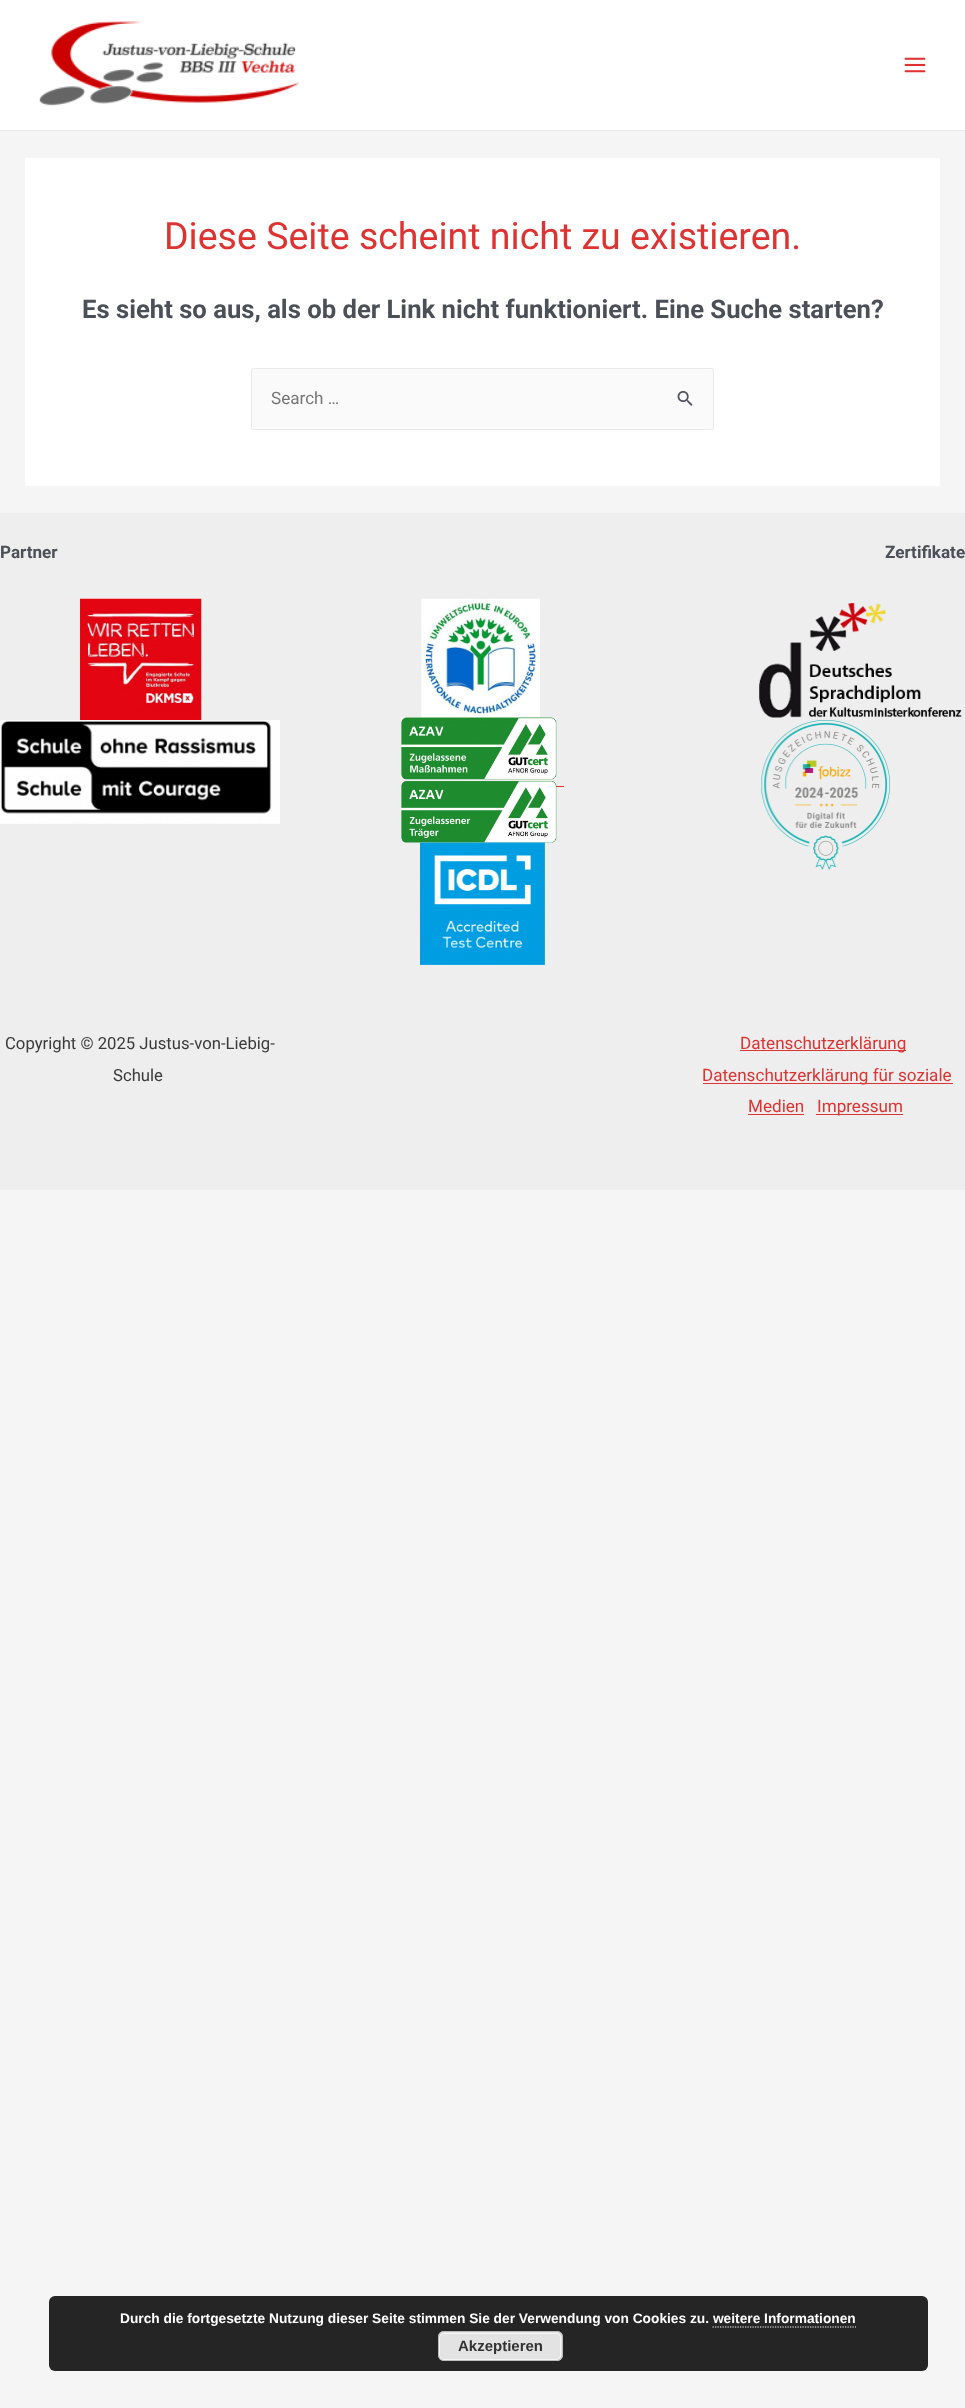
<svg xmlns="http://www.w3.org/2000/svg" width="965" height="2408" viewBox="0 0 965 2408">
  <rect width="100%" height="100%" fill="#f5f5f5"/>
  <path d="M0 0h965v130H0z" fill="#fff"/>
  <path d="M0 130h965v1H0z" fill="#eaeaea"/>
  <image x="39" y="21" width="260" height="85" href="img/1.png"/>
  <image x="904" y="57" width="22" height="16" href="img/2.png"/>
  <path d="M25 158h915v328H25z" fill="#fff"/>
  <rect x="251.5" y="368.5" width="462" height="61" rx="2" fill="#fafafa" stroke="#eaeaea"/>
  <image x="677" y="390" width="16" height="16" href="img/3.png"/>
  <path d="M0 513h965v677H0z" fill="#eee"/>
  <image x="80" y="598" width="122" height="122" href="img/4.png"/>
  <image x="0" y="720" width="280" height="104" href="img/5.png"/>
  <image x="759" y="603" width="203" height="115" href="img/6.png"/>
  <image x="761" y="720" width="129" height="150" href="img/7.png"/>
  <image x="421" y="598" width="119" height="120" href="img/8.png"/>
  <image x="401" y="717" width="156" height="126" href="img/9.png"/>
  <path d="M556 786h8v1H556z" fill="#d33"/>
  <image x="420" y="842" width="125" height="123" href="img/10.png"/>
  <path d="M740 1050h166v1H740z" fill="#d33"/>
  <path d="M703 1083h250v1H703z" fill="#d33"/>
  <path d="M748 1114h56v1H748z" fill="#d33"/>
  <path d="M816 1114h87v1H816z" fill="#d33"/>
  <rect x="49" y="2296" width="879" height="75" rx="6" fill="#252525"/>
  <path d="M712.5 2327H856" fill="none" stroke="#fff" stroke-width="1.2" stroke-dasharray="1.25 1.25"/>
  <rect x="438" y="2331" width="125" height="30" rx="6" fill="#e3e3e3"/>
  <rect x="439.5" y="2333.5" width="121" height="26" rx="4.5" fill="none" stroke="#f6f6f6"/>
  <rect x="438.5" y="2331.5" width="124" height="29" rx="5.5" fill="none" stroke="#bbb"/>
  <text x="164" y="249" font-family="Roboto" font-size="37.5" fill="#d33">Diese Seite scheint nicht zu existieren.</text>
  <text x="82" y="318" font-family="Roboto" font-size="25.65" font-weight="bold" fill="#4b4f58">Es sieht so aus, als ob der Link nicht funktioniert. Eine Suche starten?</text>
  <text x="271" y="404" font-family="Roboto" font-size="17.1" fill="#757575">Search …</text>
  <g font-family="Roboto" font-size="17.1" font-weight="bold" fill="#4b4f58">
    <text x="0" y="558">Partner</text>
    <text x="885" y="558">Zertifikate</text>
  </g>
  <g font-family="Roboto" font-size="16.7" fill="#3a3a3a">
    <text x="5" y="1049">Copyright © 2025 Justus-von-Liebig-</text>
    <text x="113" y="1081">Schule</text>
  </g>
  <g font-family="Roboto" font-size="17.1" fill="#d33">
    <text x="740" y="1049">Datenschutzerklärung</text>
    <text x="702" y="1081">Datenschutzerklärung für soziale</text>
    <text x="748" y="1112">Medien</text>
    <text x="817" y="1112">Impressum</text>
  </g>
  <text x="120" y="2323" font-family="Liberation Sans" font-size="13.75" font-weight="bold" fill="#fff">Durch die fortgesetzte Nutzung dieser Seite stimmen Sie der Verwendung von Cookies zu. weitere Informationen</text>
  <text x="458" y="2351" font-family="Liberation Sans" font-size="15" font-weight="bold" fill="#333">Akzeptieren</text>
</svg>
